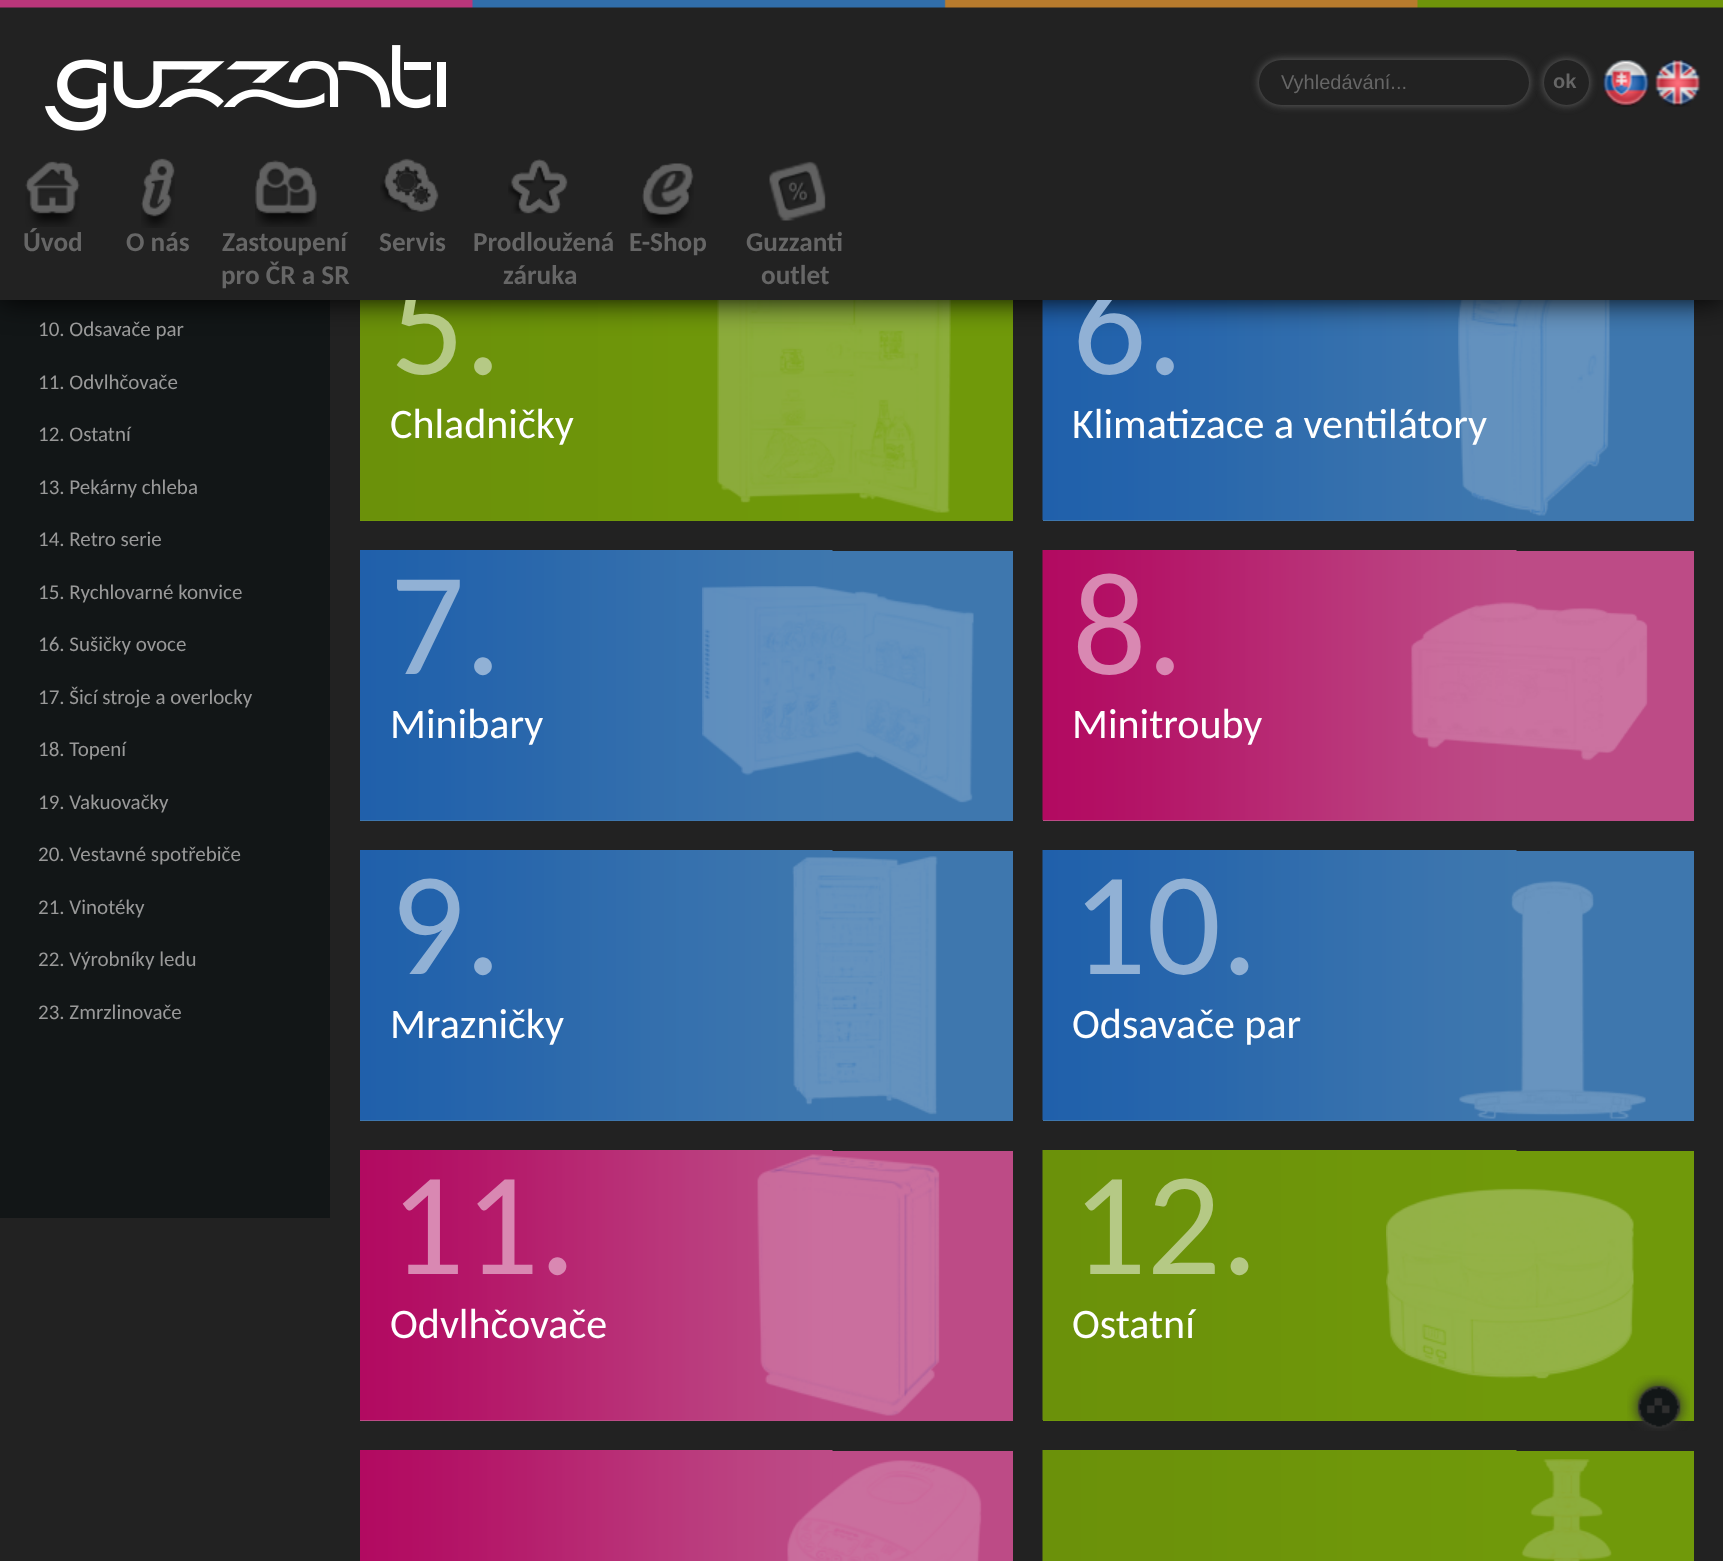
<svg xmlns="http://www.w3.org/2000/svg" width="1723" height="1561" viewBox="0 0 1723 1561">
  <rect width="100%" height="100%" fill="#222"/>
  <path d="M0 300h330v918H0z" fill="#121617"/>
  <path d="M360 300h653v221H360z" fill="#70990a"/>
  <image x="360" y="300" width="473" height="220" href="img/12.png"/>
  <image x="717" y="300" width="234" height="213" href="img/13.png"/>
  <path d="M1043 300h651v221H1043z" fill="#3e77ae"/>
  <image x="1042" y="300" width="475" height="220" href="img/14.png"/>
  <image x="1458" y="300" width="152" height="216" href="img/15.png"/>
  <path d="M0 0h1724v300H0z" fill="#000" filter="blur(15px)"/>
  <path d="M360 551h653v270H360z" fill="#3e77ae"/>
  <image x="360" y="550" width="473" height="270" href="img/16.png"/>
  <image x="702" y="586" width="272" height="217" href="img/17.png"/>
  <path d="M1043 551h651v270H1043z" fill="#bd4b86"/>
  <image x="1042" y="550" width="475" height="270" href="img/18.png"/>
  <image x="1411" y="602" width="237" height="159" href="img/19.png"/>
  <path d="M360 851h653v270H360z" fill="#3e77ae"/>
  <image x="360" y="850" width="473" height="270" href="img/16.png"/>
  <image x="792" y="856" width="146" height="259" href="img/20.png"/>
  <path d="M1043 851h651v270H1043z" fill="#3e77ae"/>
  <image x="1042" y="850" width="475" height="270" href="img/21.png"/>
  <image x="1459" y="881" width="187" height="238" href="img/22.png"/>
  <path d="M360 1151h653v270H360z" fill="#bd4b86"/>
  <image x="360" y="1150" width="473" height="270" href="img/23.png"/>
  <image x="757" y="1154" width="183" height="262" href="img/24.png"/>
  <path d="M1043 1151h651v270H1043z" fill="#70990a"/>
  <image x="1042" y="1150" width="475" height="270" href="img/25.png"/>
  <image x="1386" y="1188" width="248" height="191" href="img/26.png"/>
  <path d="M832 1451h181v110H832z" fill="#bd4b86"/>
  <image x="360" y="1450" width="473" height="111" href="img/27.png"/>
  <image x="787" y="1460" width="195" height="101" href="img/28.png"/>
  <path d="M1516 1451h178v110H1516z" fill="#70990a"/>
  <image x="1042" y="1450" width="475" height="111" href="img/29.png"/>
  <image x="1521" y="1459" width="91" height="102" href="img/30.png"/>
  <image x="1627" y="1375" width="63" height="56" href="img/31.png"/>
  <g font-family="Carlito" font-size="21" fill="#999">
    <text x="38" y="336">10. Odsavače par</text>
    <text x="38" y="389">11. Odvlhčovače</text>
    <text x="38" y="441">12. Ostatní</text>
    <text x="38" y="494">13. Pekárny chleba</text>
    <text x="38" y="546">14. Retro serie</text>
    <text x="38" y="599">15. Rychlovarné konvice</text>
    <text x="38" y="651">16. Sušičky ovoce</text>
    <text x="38" y="704">17. Šicí stroje a overlocky</text>
    <text x="38" y="756">18. Topení</text>
    <text x="38" y="809">19. Vakuovačky</text>
    <text x="38" y="861">20. Vestavné spotřebiče</text>
    <text x="38" y="914">21. Vinotéky</text>
    <text x="38" y="966">22. Výrobníky ledu</text>
    <text x="38" y="1019">23. Zmrzlinovače</text>
  </g>
  <text x="390" y="374" font-family="Carlito" font-size="147" fill="#b5c985">5.</text>
  <text x="390" y="438" font-family="Carlito" font-size="42" fill="#fff">Chladničky</text>
  <text x="1072" y="374" font-family="Carlito" font-size="147" fill="#91b1d5">6.</text>
  <path d="M0 7h1723v293H0z" fill="#222"/>
  <image x="1655" y="60" width="46" height="47" href="img/4.png"/>
  <image x="1603" y="60" width="47" height="47" href="img/3.png"/>
  <rect x="1544" y="60" width="45" height="45" rx="22.5" fill="#666" filter="blur(4px)"/>
  <circle cx="1566.5" cy="82.5" r="22.5" fill="#222"/>
  <text x="1553" y="88" font-family="Liberation Sans" font-size="20" font-weight="bold" fill="#666">ok</text>
  <rect x="1259" y="60" width="270" height="45" rx="22.5" fill="#666" filter="blur(4px)"/>
  <rect x="1259" y="60" width="270" height="45" rx="22.5" fill="#222"/>
  <text x="1281" y="89" font-family="Liberation Sans" font-size="20" fill="#666">Vyhledávání...</text>
  <image x="45" y="45" width="401" height="86" href="img/2.png"/>
  <g font-family="Carlito" font-size="27.25" font-weight="bold" fill="#666">
    <text x="761" y="284">outlet</text>
    <text x="746" y="251">Guzzanti</text>
  </g>
  <image x="769" y="161" width="57" height="60" href="img/11.png"/>
  <text x="629" y="251" font-family="Carlito" font-size="27.25" font-weight="bold" fill="#666">E-Shop</text>
  <image x="642" y="163" width="52" height="65" href="img/10.png"/>
  <g font-family="Carlito" font-size="27.25" font-weight="bold" fill="#666">
    <text x="503" y="284">záruka</text>
    <text x="473" y="251">Prodloužená</text>
  </g>
  <image x="508" y="159" width="60" height="55" href="img/9.png"/>
  <text x="379" y="251" font-family="Carlito" font-size="27.25" font-weight="bold" fill="#666">Servis</text>
  <image x="380" y="158" width="59" height="54" href="img/8.png"/>
  <g font-family="Carlito" font-size="27.25" font-weight="bold" fill="#666">
    <text x="221" y="284">pro ČR a SR</text>
    <text x="222" y="251">Zastoupení</text>
  </g>
  <image x="255" y="160" width="62" height="67" href="img/7.png"/>
  <text x="126" y="251" font-family="Carlito" font-size="27.25" font-weight="bold" fill="#666">O nás</text>
  <image x="141" y="158" width="34" height="70" href="img/6.png"/>
  <text x="23" y="251" font-family="Carlito" font-size="27.25" font-weight="bold" fill="#666">Úvod</text>
  <image x="25" y="161" width="55" height="66" href="img/5.png"/>
  <image x="0" y="0" width="1723" height="8" href="img/1.png"/>
  <text x="1072" y="438" font-family="Carlito" font-size="42" fill="#fff">Klimatizace a ventilátory</text>
  <text x="390" y="674" font-family="Carlito" font-size="147" fill="#91b1d5">7.</text>
  <text x="390" y="738" font-family="Carlito" font-size="42" fill="#fff">Minibary</text>
  <text x="1072" y="674" font-family="Carlito" font-size="147" fill="#d988b2">8.</text>
  <text x="1072" y="738" font-family="Carlito" font-size="42" fill="#fff">Minitrouby</text>
  <text x="390" y="974" font-family="Carlito" font-size="147" fill="#91b1d5">9.</text>
  <text x="390" y="1038" font-family="Carlito" font-size="42" fill="#fff">Mrazničky</text>
  <text x="1072" y="974" font-family="Carlito" font-size="147" fill="#91b1d5">10.</text>
  <text x="1072" y="1038" font-family="Carlito" font-size="42" fill="#fff">Odsavače par</text>
  <text x="390" y="1274" font-family="Carlito" font-size="147" fill="#d988b2">11.</text>
  <text x="390" y="1338" font-family="Carlito" font-size="42" fill="#fff">Odvlhčovače</text>
  <text x="1072" y="1274" font-family="Carlito" font-size="147" fill="#b5c985">12.</text>
  <text x="1072" y="1338" font-family="Carlito" font-size="42" fill="#fff">Ostatní</text>
</svg>
